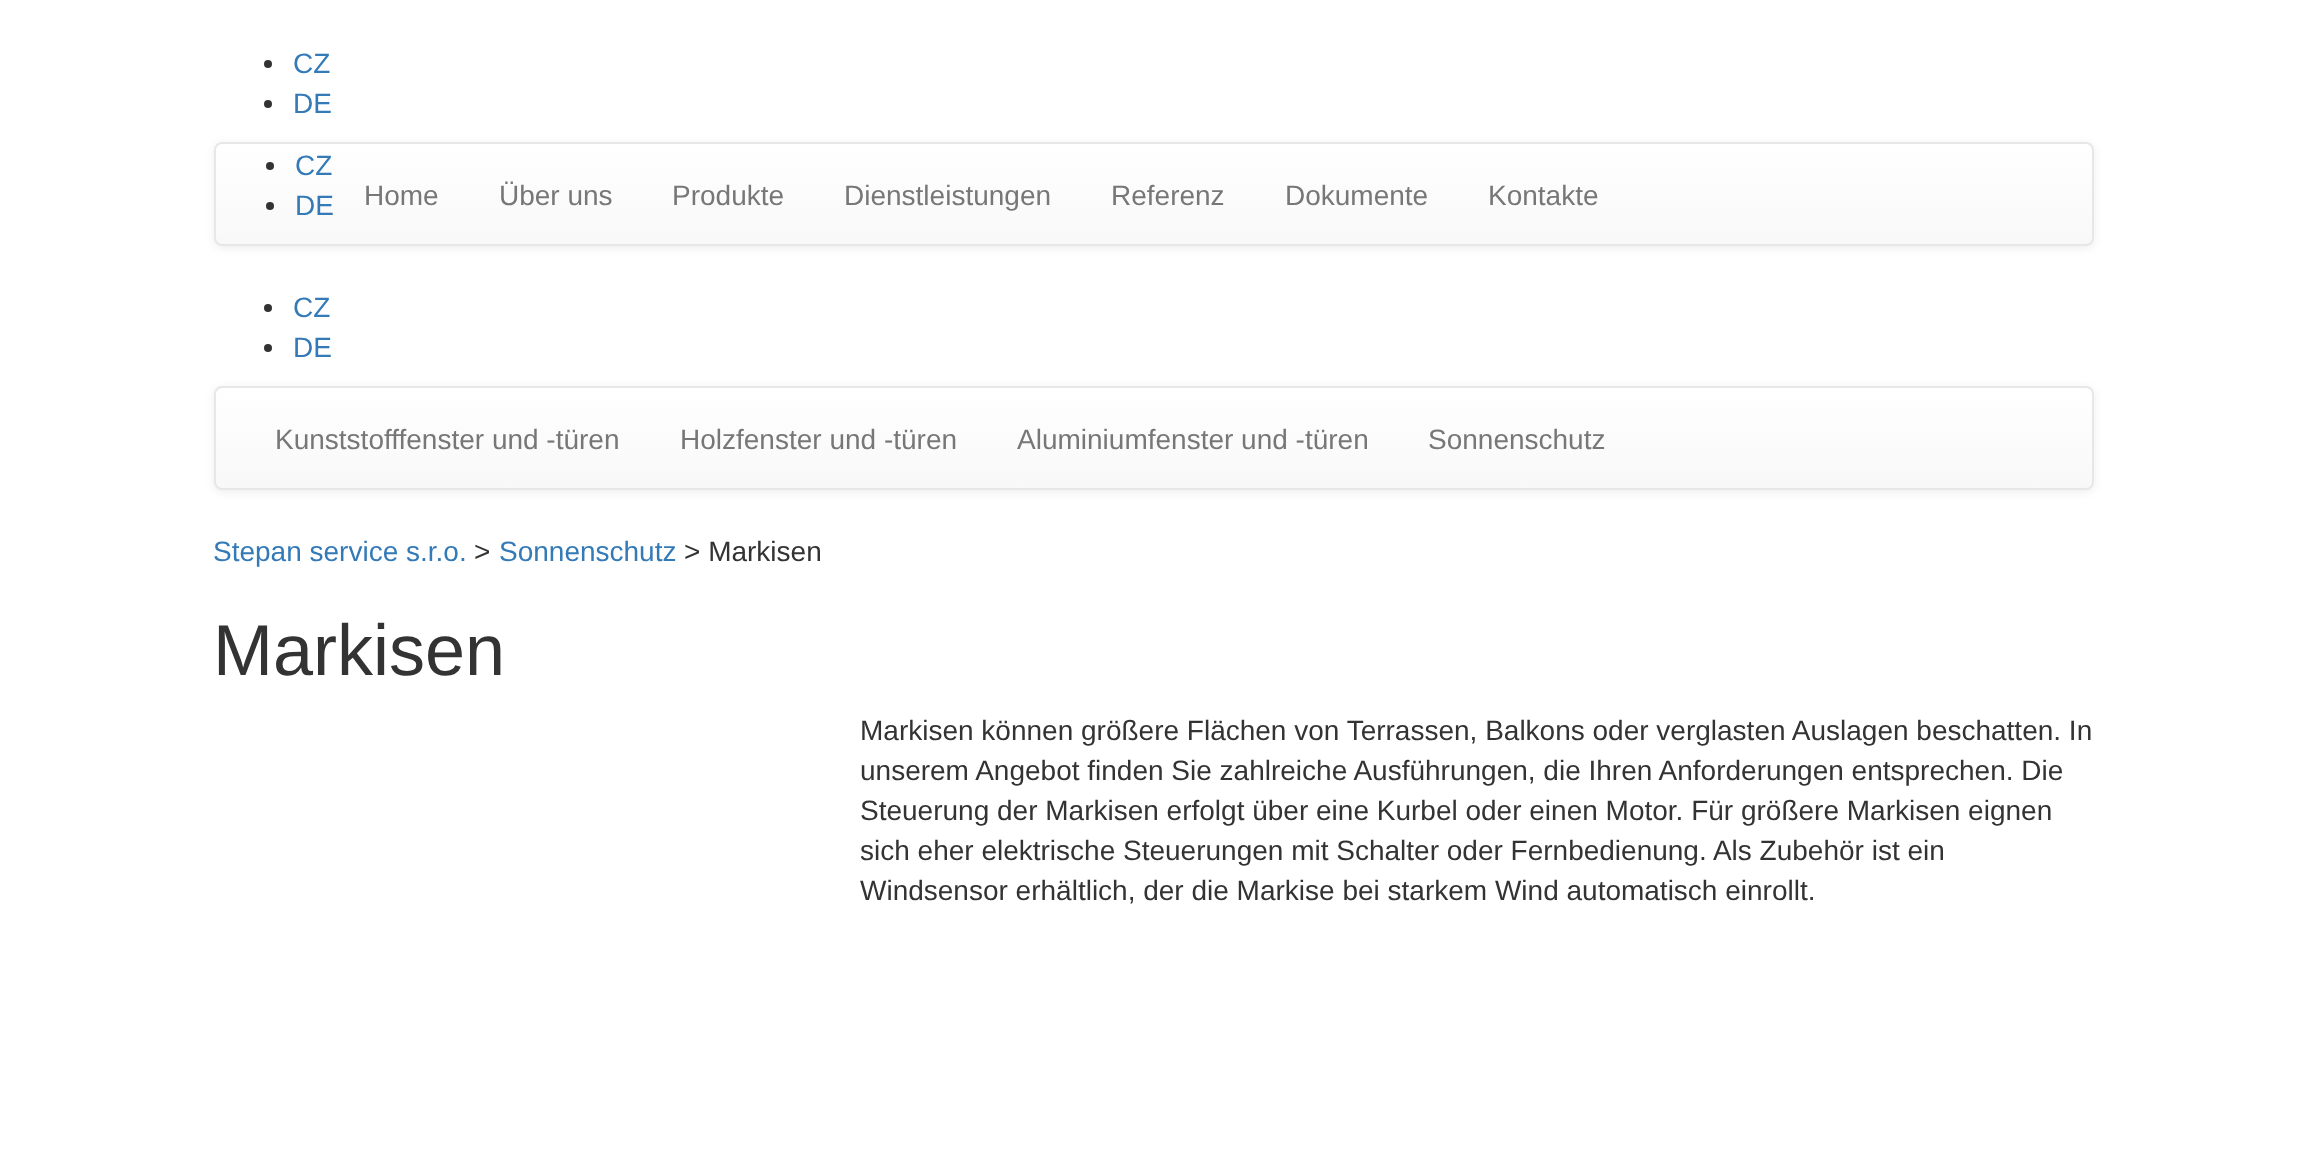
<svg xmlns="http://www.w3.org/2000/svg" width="2306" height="1164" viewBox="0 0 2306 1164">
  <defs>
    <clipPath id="clip1"><rect x="214" y="142" width="1880" height="104" rx="8"/></clipPath>
    <linearGradient id="g1" gradientUnits="userSpaceOnUse" x1="1154" y1="144" x2="1154" y2="244"><stop offset="0" stop-color="#fff"/><stop offset="1" stop-color="#f8f8f8"/></linearGradient>
    <clipPath id="clip2"><rect x="214" y="386" width="1880" height="104" rx="8"/></clipPath>
    <linearGradient id="g2" gradientUnits="userSpaceOnUse" x1="1154" y1="388" x2="1154" y2="488"><stop offset="0" stop-color="#fff"/><stop offset="1" stop-color="#f8f8f8"/></linearGradient>
  </defs>
  <rect width="100%" height="100%" fill="#fff"/>
  <circle cx="268" cy="64" r="4" fill="#333"/>
  <circle cx="268" cy="104" r="4" fill="#333"/>
  <rect x="214" y="144" width="1880" height="104" rx="8" fill="#00000012" filter="blur(5px)"/>
  <g clip-path="url(#clip1)">
    <path d="M214 144h1880v100H214z" fill="url(#g1)"/>
  </g>
  <rect x="215" y="143" width="1878" height="102" rx="7" fill="none" stroke="#e7e7e7" stroke-width="2"/>
  <circle cx="270" cy="166" r="4" fill="#333"/>
  <circle cx="270" cy="206" r="4" fill="#333"/>
  <circle cx="268" cy="308" r="4" fill="#333"/>
  <circle cx="268" cy="348" r="4" fill="#333"/>
  <rect x="214" y="388" width="1880" height="104" rx="8" fill="#00000012" filter="blur(5px)"/>
  <g clip-path="url(#clip2)">
    <path d="M214 388h1880v100H214z" fill="url(#g2)"/>
  </g>
  <rect x="215" y="387" width="1878" height="102" rx="7" fill="none" stroke="#e7e7e7" stroke-width="2"/>
  <g font-family="Liberation Sans" font-size="28" fill="#337ab7">
    <text x="293" y="73">CZ</text>
    <text x="293" y="113">DE</text>
    <text x="295" y="175">CZ</text>
    <text x="295" y="215">DE</text>
  </g>
  <g font-family="Liberation Sans" font-size="28" fill="#777">
    <text x="364" y="205">Home</text>
    <text x="499" y="205">Über uns</text>
    <text x="672" y="205">Produkte</text>
    <text x="844" y="205">Dienstleistungen</text>
    <text x="1111" y="205">Referenz</text>
    <text x="1285" y="205">Dokumente</text>
    <text x="1488" y="205">Kontakte</text>
  </g>
  <g font-family="Liberation Sans" font-size="28" fill="#337ab7">
    <text x="293" y="317">CZ</text>
    <text x="293" y="357">DE</text>
  </g>
  <g font-family="Liberation Sans" font-size="28" fill="#777">
    <text x="275" y="449">Kunststofffenster und -türen</text>
    <text x="680" y="449">Holzfenster und -türen</text>
    <text x="1017" y="449">Aluminiumfenster und -türen</text>
    <text x="1428" y="449">Sonnenschutz</text>
  </g>
  <text x="213" y="561" font-family="Liberation Sans" font-size="28" fill="#337ab7">Stepan service s.r.o.</text>
  <text x="474" y="561" font-family="Liberation Sans" font-size="28" fill="#333">&gt;</text>
  <text x="499" y="561" font-family="Liberation Sans" font-size="28" fill="#337ab7">Sonnenschutz</text>
  <text x="684" y="561" font-family="Liberation Sans" font-size="28" fill="#333">&gt; Markisen</text>
  <text x="213" y="675" font-family="Liberation Sans" font-size="72" fill="#333">Markisen</text>
  <g font-family="Liberation Sans" font-size="28" fill="#333">
    <text x="860" y="740">Markisen können größere Flächen von Terrassen, Balkons oder verglasten Auslagen beschatten. In</text>
    <text x="860" y="780">unserem Angebot finden Sie zahlreiche Ausführungen, die Ihren Anforderungen entsprechen. Die</text>
    <text x="860" y="820">Steuerung der Markisen erfolgt über eine Kurbel oder einen Motor. Für größere Markisen eignen</text>
    <text x="860" y="860">sich eher elektrische Steuerungen mit Schalter oder Fernbedienung. Als Zubehör ist ein</text>
    <text x="860" y="900">Windsensor erhältlich, der die Markise bei starkem Wind automatisch einrollt.</text>
  </g>
</svg>
